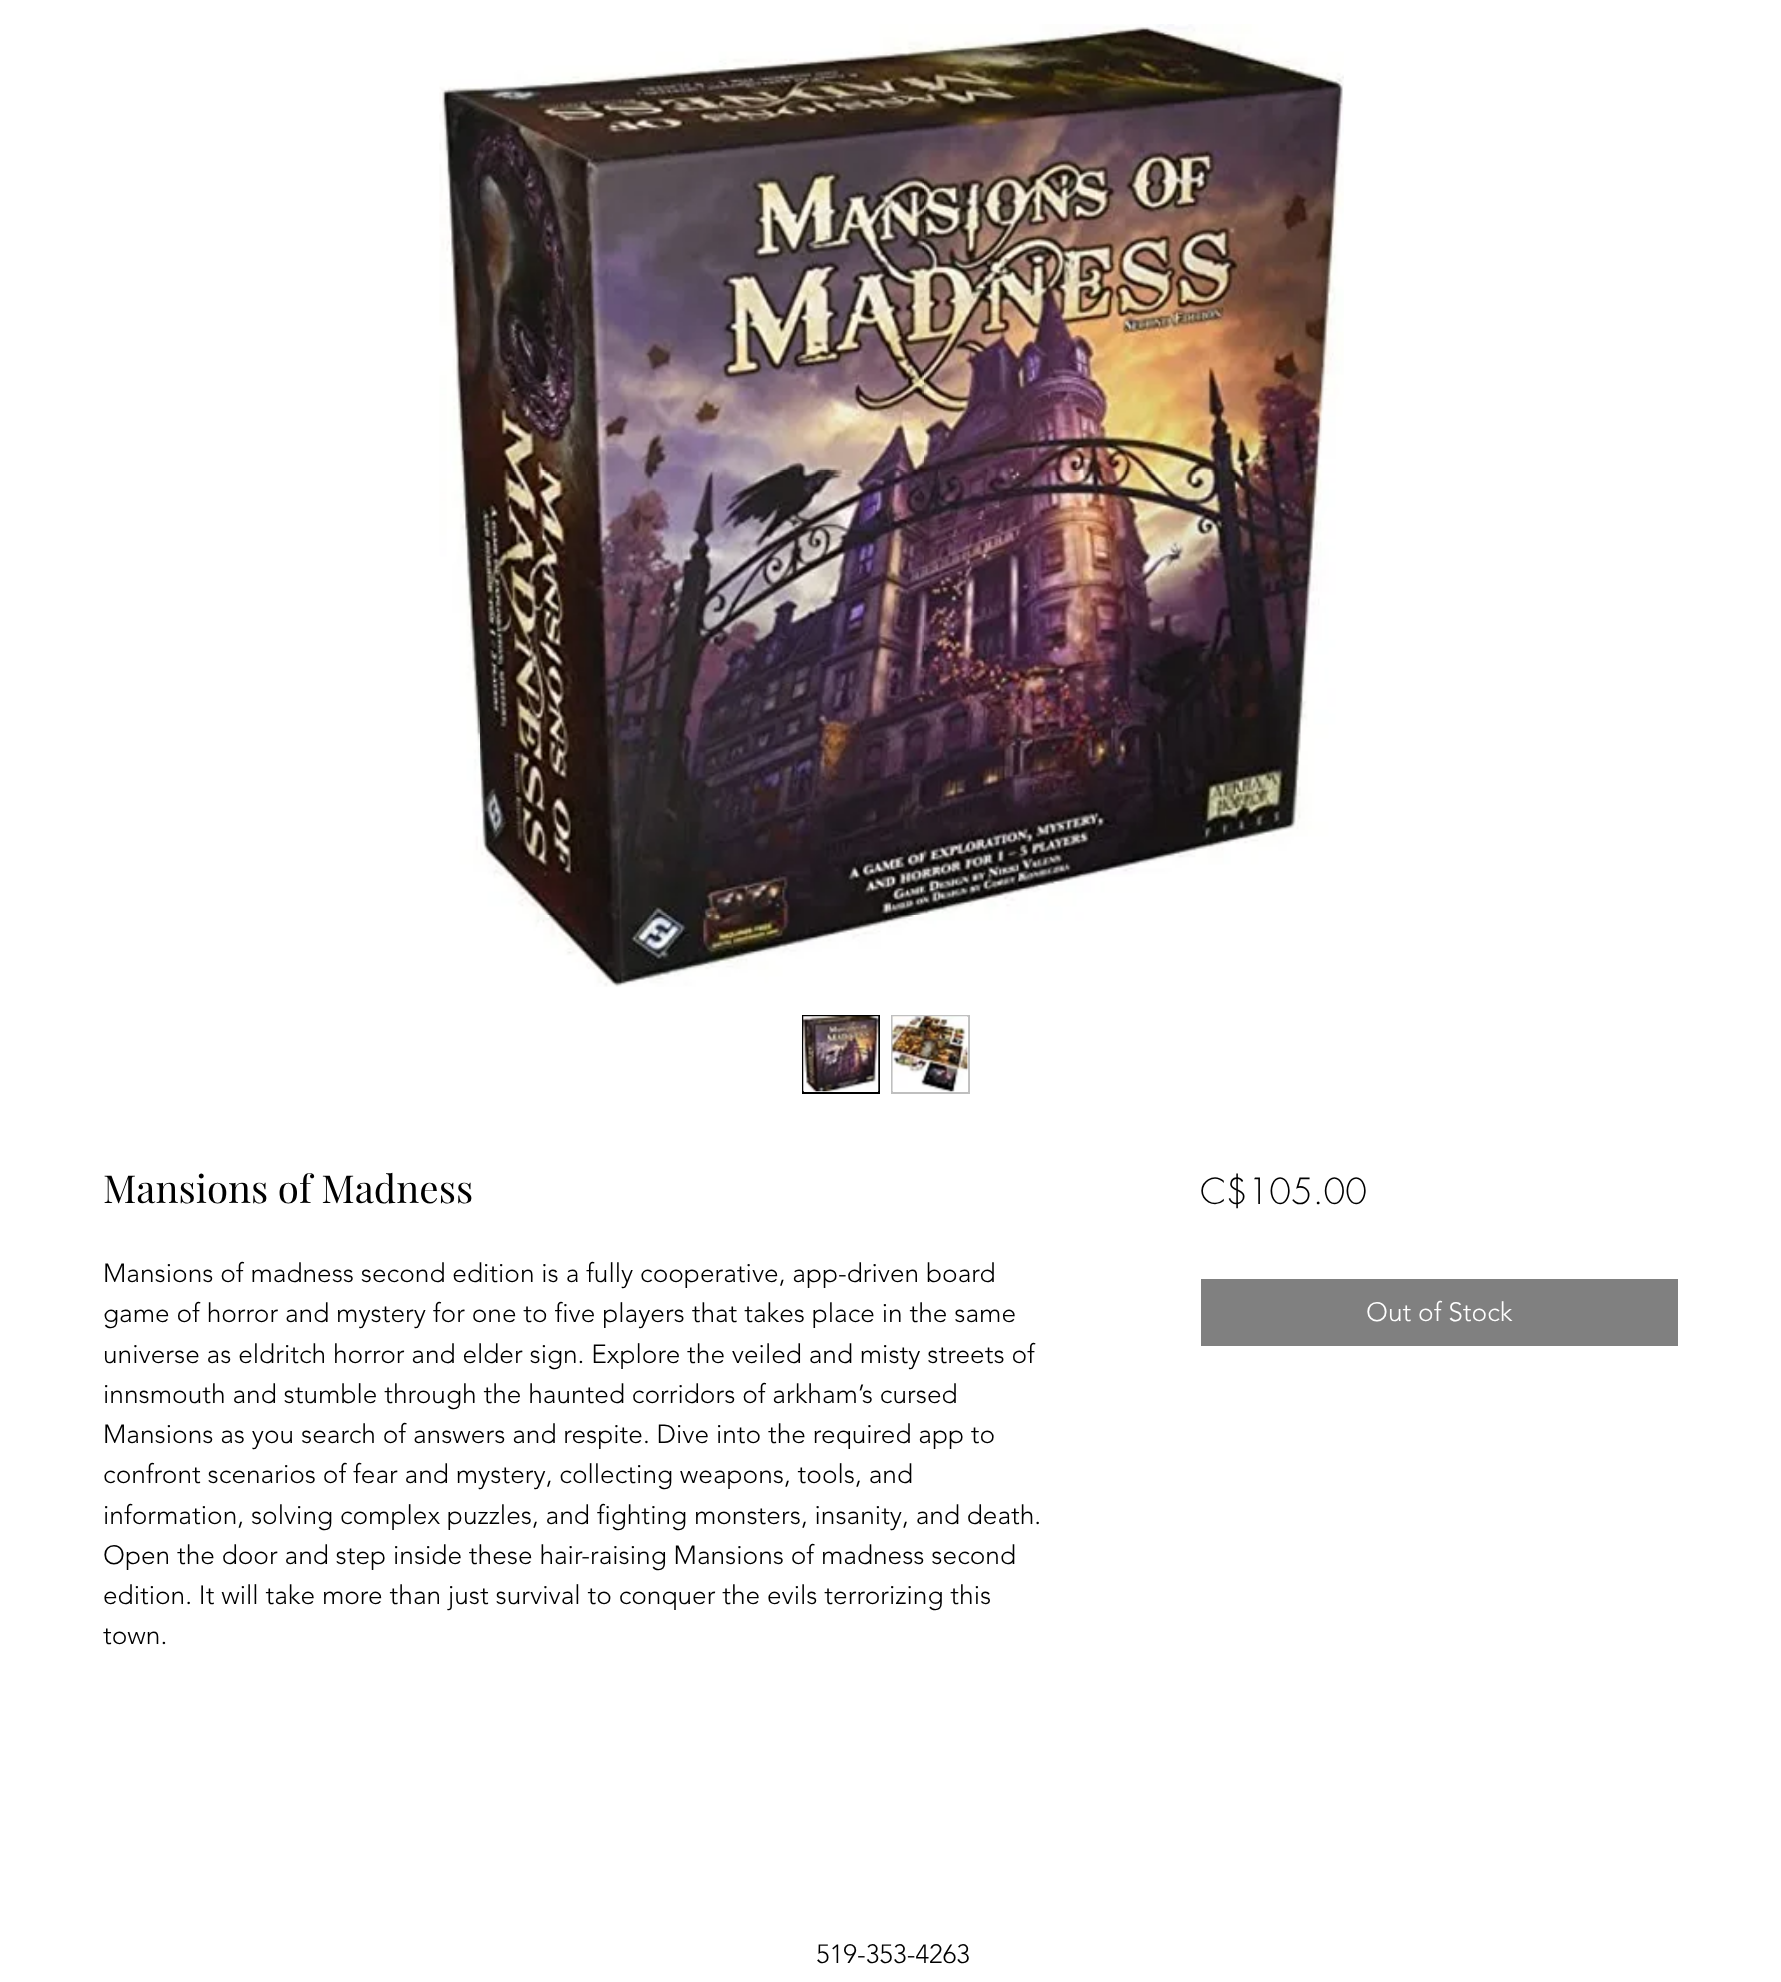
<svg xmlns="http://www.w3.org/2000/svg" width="1781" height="1982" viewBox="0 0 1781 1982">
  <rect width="100%" height="100%" fill="#fff"/>
  <image x="439" y="24" width="905" height="963" href="img/1.png"/>
  <path d="M803 1016h76v77H803z" fill="none" stroke="#000" stroke-width="2"/>
  <image x="803" y="1016" width="76" height="76" href="img/2.png"/>
  <path d="M892 1016h77v77H892z" fill="none" stroke="#bfbfbf" stroke-width="2"/>
  <image x="892" y="1016" width="77" height="76" href="img/3.png"/>
  <path d="M1201 1279h477v67H1201z" fill="#808080"/>
  <text x="103" y="1203" font-family="Playfair Display" font-size="38.5" fill="#000">Mansions of Madness</text>
  <g font-family="'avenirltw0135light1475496'" font-size="26.25" font-weight="300" fill="#000">
    <text x="103" y="1282">Mansions of madness second edition is a fully cooperative, app-driven board</text>
    <text x="103" y="1322">game of horror and mystery for one to five players that takes place in the same</text>
    <text x="103" y="1363">universe as eldritch horror and elder sign. Explore the veiled and misty streets of</text>
    <text x="103" y="1403">innsmouth and stumble through the haunted corridors of arkham’s cursed</text>
    <text x="103" y="1443">Mansions as you search of answers and respite. Dive into the required app to</text>
    <text x="103" y="1483">confront scenarios of fear and mystery, collecting weapons, tools, and</text>
    <text x="103" y="1524">information, solving complex puzzles, and fighting monsters, insanity, and death.</text>
    <text x="103" y="1564">Open the door and step inside these hair-raising Mansions of madness second</text>
    <text x="103" y="1604">edition. It will take more than just survival to conquer the evils terrorizing this</text>
    <text x="103" y="1644">town.</text>
  </g>
  <text x="1200" y="1204" font-family="futura" font-size="35" font-weight="300" fill="#000">C$105.00</text>
  <text x="1366" y="1321" font-family="'avenirltw0135light1475496'" font-size="26.25" font-weight="300" fill="#fff">Out of Stock</text>
  <text x="816" y="1963" font-family="'avenirltw0135light1475496'" font-size="26.25" font-weight="300" fill="#000">519-353-4263</text>
</svg>
